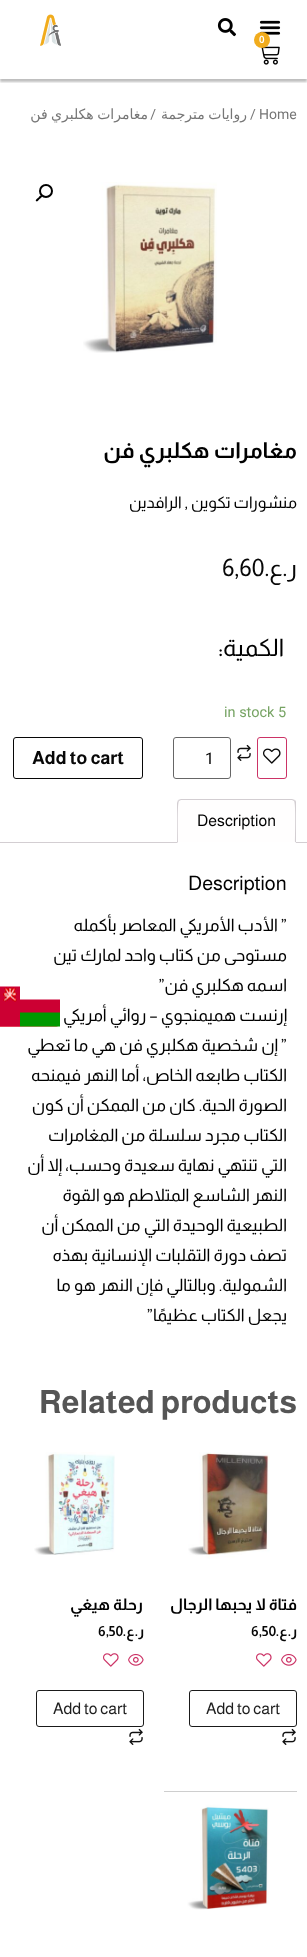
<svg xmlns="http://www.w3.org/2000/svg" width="307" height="1957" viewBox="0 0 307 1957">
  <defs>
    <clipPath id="clip1"><path d="M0 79h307v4H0z"/></clipPath>
  </defs>
  <rect width="100%" height="100%" fill="#fff"/>
  <g clip-path="url(#clip1)">
    <path d="M0 3h307v79H0z" fill="#00000040" filter="blur(1px)"/>
  </g>
  <image x="259" y="20" width="22" height="15" href="img/1.png"/>
  <image x="217" y="18" width="19" height="19" href="img/2.png"/>
  <image x="261" y="46" width="19" height="19" href="img/3.png"/>
  <circle cx="262" cy="40" r="8" fill="#f1ac1d"/>
  <image x="40" y="14" width="21" height="32" href="img/4.png"/>
  <image x="83" y="182" width="134" height="171" href="img/5.png"/>
  <circle cx="46" cy="191" r="6" fill="none" stroke="#000" stroke-width="2"/>
  <path d="M42 195.5C43 196.5 40.5 198.5 39.5 199C39 199.5 37.5 202.5 36 201C35 200 37.5 198.5 38.5 197.5C39 197 40.5 194.5 42 195.5Z" fill="#000"/>
  <rect x="257.5" y="737.5" width="29" height="41" rx="2.5" fill="none" stroke="#c36"/>
  <image x="263" y="748" width="18" height="16" href="img/6.png"/>
  <image x="237" y="744" width="14" height="17" href="img/7.png"/>
  <rect x="173.5" y="737.5" width="57" height="41" rx="2.5" fill="none" stroke="#666"/>
  <rect x="13.5" y="737.5" width="129" height="41" rx="2.5" fill="none" stroke="#070707"/>
  <path d="M0 842h307v1H0z" fill="#d3ced2"/>
  <path d="M181 799H292C294 799 296 801 296 803V843H177V803C177 801 179 799 181 799Z" fill="#fffefe"/>
  <path d="M181 799L178 800L179 801L181 800H292L294 801L295 800L292 799Z" fill="#d3ced2"/>
  <path d="M296 843V803C296 802 296 801 295 800L294 801C296 803 295 837 295 842Z" fill="#d3ced2"/>
  <path d="M296 843L295 842H178L177 843Z" fill="#fff"/>
  <path d="M177 843L178 842C178 837 177 803 179 801L178 800L177 803Z" fill="#d3ced2"/>
  <image x="188" y="1452" width="82" height="107" href="img/8.png"/>
  <image x="281" y="1653" width="16" height="13" href="img/9.png"/>
  <image x="256" y="1653" width="16" height="14" href="img/10.png"/>
  <rect x="189.5" y="1690.5" width="107" height="36" rx="2.5" fill="none" stroke="#1a1a1a"/>
  <image x="282" y="1728" width="14" height="17" href="img/7.png"/>
  <image x="34" y="1452" width="81" height="103" href="img/11.png"/>
  <image x="128" y="1653" width="16" height="13" href="img/9.png"/>
  <image x="103" y="1653" width="16" height="14" href="img/10.png"/>
  <rect x="36.5" y="1690.5" width="107" height="36" rx="2.5" fill="none" stroke="#1a1a1a"/>
  <image x="129" y="1728" width="14" height="17" href="img/7.png"/>
  <image x="164" y="1791" width="133" height="119" href="img/12.png"/>
  <path d="M-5 987H55C58 987 60 989 60 992V1022C60 1025 58 1027 55 1027H-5Z" fill="#f78080"/>
  <image x="0" y="986" width="60" height="41" href="img/13.png"/>
  <text x="259" y="43" font-family="Almarai" font-size="10" font-weight="bold" fill="#fff">0</text>
  <g font-family="Roboto" font-size="14" fill="#767676">
    <text x="259" y="119">Home</text>
    <text x="250" y="119">/</text>
  </g>
  <text x="247" y="119" word-spacing="-1" font-family="DejaVu Sans" font-size="14" direction="rtl" fill="#767676">روايات مترجمة</text>
  <text x="156" y="119" font-family="Roboto" font-size="14" direction="rtl" fill="#767676">/</text>
  <text x="148" y="119" word-spacing="-1" font-family="DejaVu Sans" font-size="14" direction="rtl" fill="#767676">مغامرات هكلبري فن</text>
  <text x="297" y="458" font-family="Almarai" font-size="22" font-weight="bold" direction="rtl" fill="#000">مغامرات هكلبري فن</text>
  <text x="297" y="508" font-family="Almarai" font-size="16" direction="rtl" fill="#000">منشورات تكوين , الرافدين</text>
  <text x="297" y="576" font-family="Almarai" font-size="24" direction="rtl" fill="#070707">ر.ع.</text>
  <text x="222" y="576" font-family="Almarai" font-size="24" fill="#070707">6,60</text>
  <text x="284" y="656" font-family="Almarai" font-size="24" direction="rtl" fill="#000">الكمية:</text>
  <text x="224" y="717" font-family="Roboto" font-size="14.5" fill="#77a464">in stock 5</text>
  <text x="205" y="764" font-family="Roboto" font-size="16" fill="#000">1</text>
  <text x="32" y="764" font-family="Almarai" font-size="18" font-weight="bold" fill="#070707">Add to cart</text>
  <text x="197" y="826" font-family="Almarai" font-size="16" fill="#000">Description</text>
  <text x="188" y="890" font-family="Almarai" font-size="20" fill="#000">Description</text>
  <g font-family="Almarai" font-size="17" direction="rtl" fill="#000">
    <text x="287" y="931">” الأدب الأمريكي المعاصر بأكمله</text>
    <text x="287" y="961">مستوحى من كتاب واحد لمارك تين</text>
    <text x="287" y="991">اسمه هكلبري فن”</text>
    <text x="287" y="1021">إرنست هميمنجوي – روائي أمريكي</text>
    <text x="287" y="1051">” إن شخصية هكلبري فن هي ما تعطي</text>
    <text x="287" y="1081">الكتاب طابعه الخاص، أما النهر فيمنحه</text>
    <text x="287" y="1111">الصورة الحية. كان من الممكن أن كون</text>
    <text x="287" y="1141">الكتاب مجرد سلسلة من المغامرات</text>
    <text x="287" y="1171">التي تنتهي نهاية سعيدة وحسب، إلا أن</text>
    <text x="287" y="1201">النهر الشاسع المتلاطم هو القوة</text>
    <text x="287" y="1231">الطبيعية الوحيدة التي من الممكن أن</text>
    <text x="287" y="1261">تصف دورة التقلبات الإنسانية بهذه</text>
    <text x="287" y="1291">الشمولية. وبالتالي فإن النهر هو ما</text>
    <text x="287" y="1321">يجعل الكتاب عظيمًا”</text>
  </g>
  <text x="39" y="1413" font-family="Almarai" font-size="32" font-weight="bold" fill="#555">Related products</text>
  <text x="297" y="1610" font-family="Almarai" font-size="16" font-weight="bold" direction="rtl" fill="#000">فتاة لا يحبها الرجال</text>
  <text x="297" y="1636" font-family="Almarai" font-size="14" font-weight="bold" direction="rtl" fill="#070707">ر.ع.</text>
  <text x="251" y="1636" font-family="Almarai" font-size="14" font-weight="bold" fill="#070707">6,50</text>
  <text x="206" y="1714" font-family="Almarai" font-size="16" fill="#1e1e1e">Add to cart</text>
  <text x="143" y="1610" font-family="Almarai" font-size="16" font-weight="bold" direction="rtl" fill="#000">رحلة هيغي</text>
  <text x="144" y="1636" font-family="Almarai" font-size="14" font-weight="bold" direction="rtl" fill="#070707">ر.ع.</text>
  <text x="98" y="1636" font-family="Almarai" font-size="14" font-weight="bold" fill="#070707">6,50</text>
  <text x="53" y="1714" font-family="Almarai" font-size="16" fill="#1e1e1e">Add to cart</text>
</svg>
